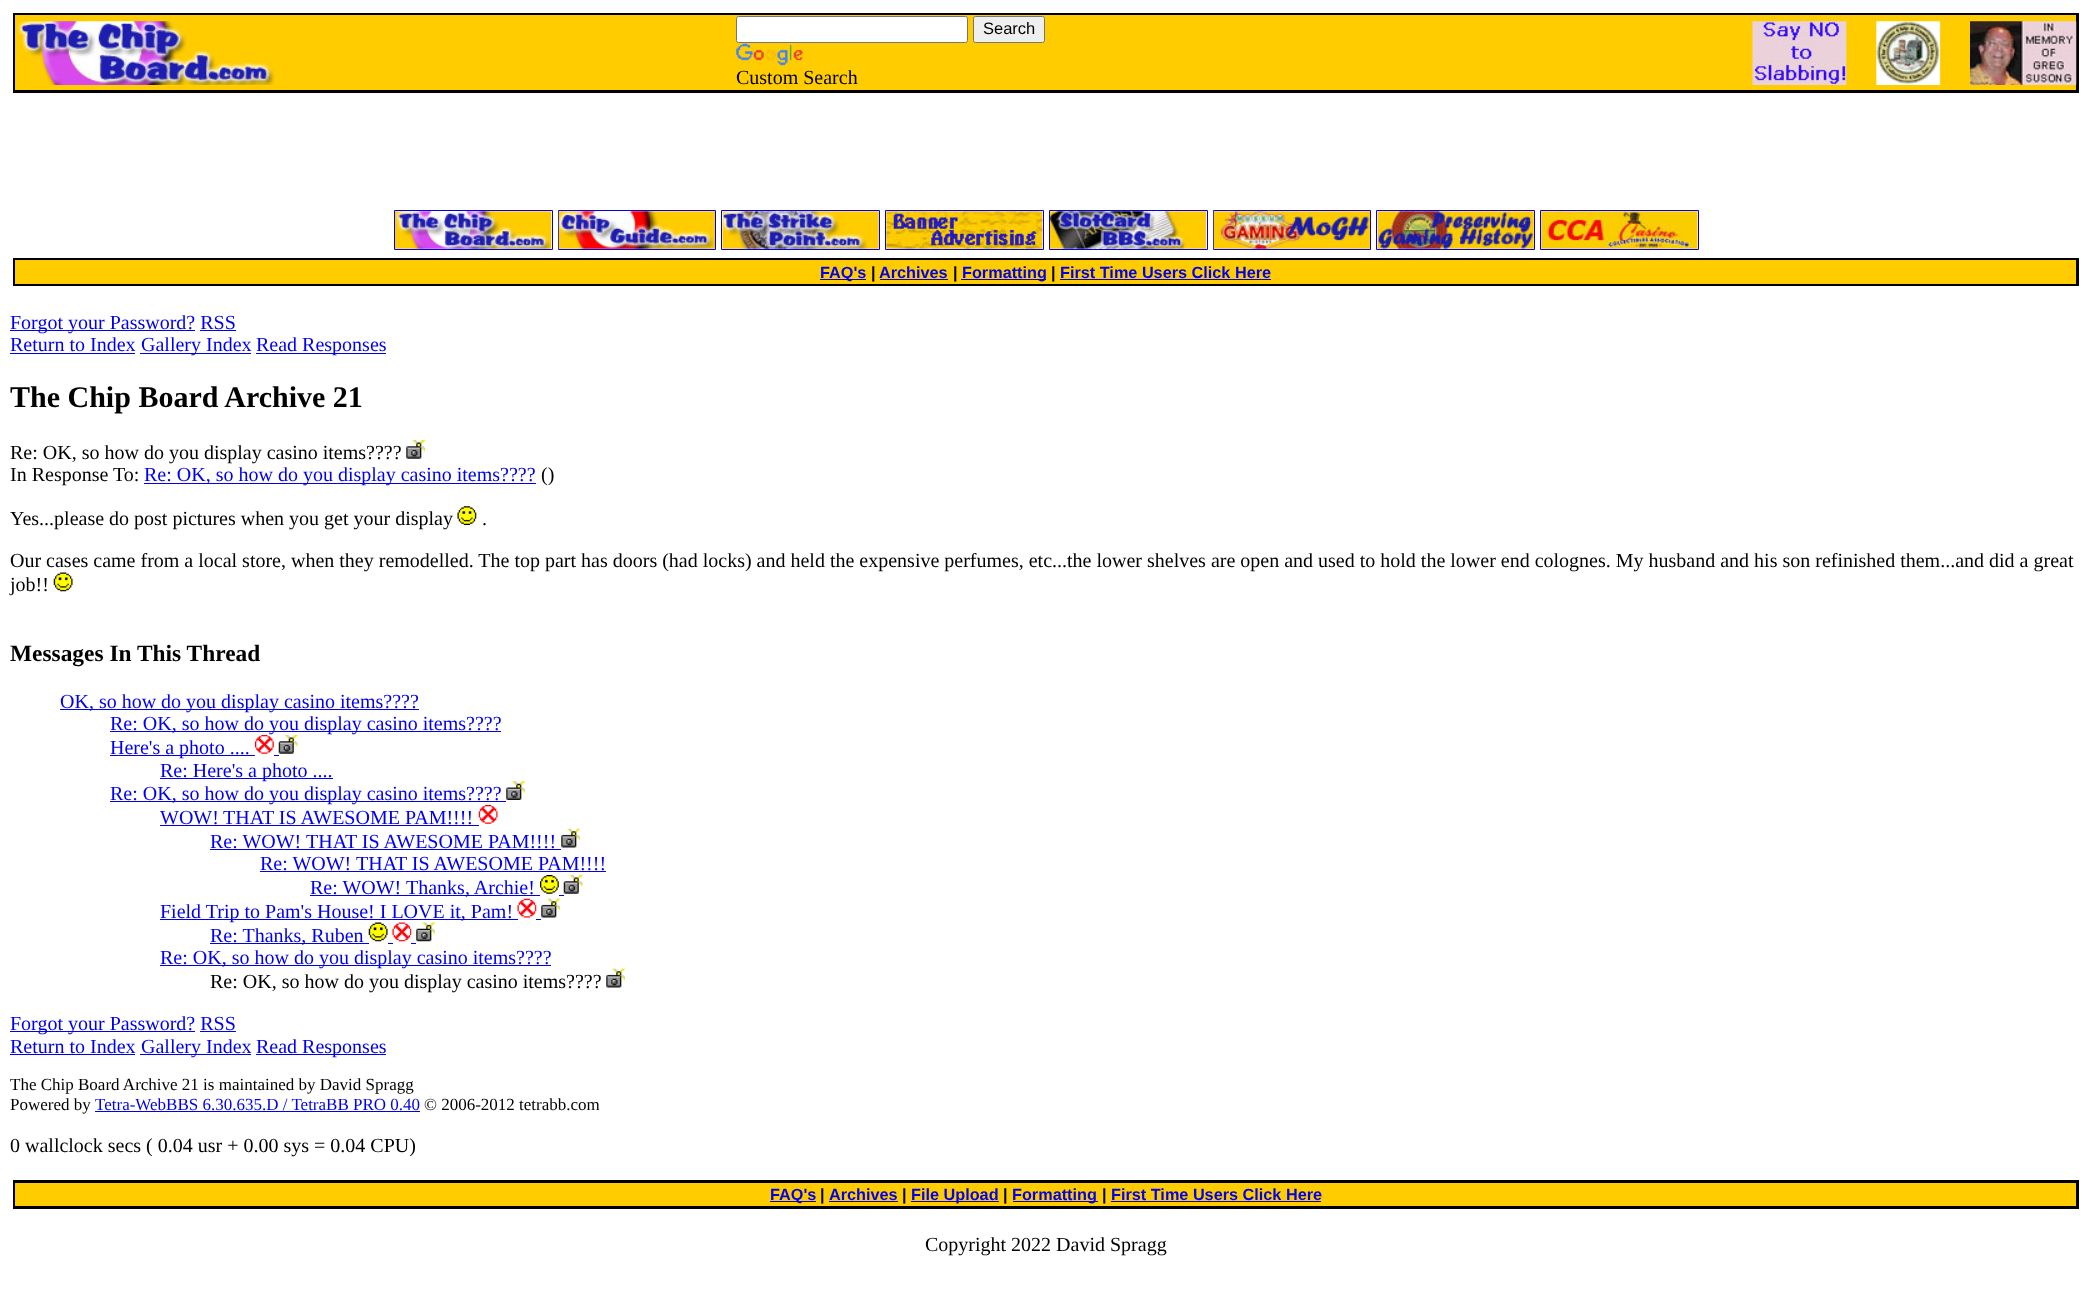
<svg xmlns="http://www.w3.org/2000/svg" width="2091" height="1296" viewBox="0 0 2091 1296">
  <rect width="100%" height="100%" fill="#fff"/>
  <path d="M13 13h2066v80H13z" fill="#000"/>
  <path d="M15 15h2061v75H15z" fill="#fc0"/>
  <image x="15" y="21" width="260" height="64" href="img/1.png"/>
  <rect x="736.5" y="16.5" width="231" height="26" rx="2" fill="#fff" stroke="#767676"/>
  <rect x="973.5" y="16.5" width="71" height="26" rx="2" fill="#efefef" stroke="#767676"/>
  <image x="736" y="43" width="67" height="23" href="img/2.png"/>
  <image x="1752" y="21" width="95" height="64" href="img/3.png"/>
  <image x="1876" y="21" width="65" height="64" href="img/4.png"/>
  <image x="1970" y="21" width="107" height="64" href="img/5.png"/>
  <path d="M394.5 210.5h158v39H394.5z" fill="none" stroke="#00e"/>
  <path d="M558.5 210.5h157v39H558.5z" fill="none" stroke="#00e"/>
  <path d="M721.5 210.5h158v39H721.5z" fill="none" stroke="#00e"/>
  <path d="M885.5 210.5h158v39H885.5z" fill="none" stroke="#00e"/>
  <path d="M1049.5 210.5h158v39H1049.5z" fill="none" stroke="#00e"/>
  <path d="M1213.5 210.5h157v39H1213.5z" fill="none" stroke="#00e"/>
  <path d="M1376.5 210.5h158v39H1376.5z" fill="none" stroke="#00e"/>
  <path d="M1540.5 210.5h158v39H1540.5z" fill="none" stroke="#00e"/>
  <image x="395" y="211" width="157" height="38" href="img/6.png"/>
  <image x="558" y="211" width="157" height="38" href="img/7.png"/>
  <image x="722" y="211" width="157" height="38" href="img/8.png"/>
  <image x="886" y="211" width="157" height="38" href="img/9.png"/>
  <image x="1050" y="211" width="157" height="38" href="img/10.png"/>
  <image x="1213" y="211" width="157" height="38" href="img/11.png"/>
  <image x="1377" y="211" width="157" height="38" href="img/12.png"/>
  <image x="1541" y="211" width="157" height="38" href="img/13.png"/>
  <path d="M13 258h2066v28H13z" fill="#000"/>
  <path d="M15 260h2061v24H15z" fill="#fc0"/>
  <path d="M820 279h46v1H820z" fill="#00e"/>
  <path d="M880 279h68v1H880z" fill="#00e"/>
  <path d="M961 279h85v1H961z" fill="#00e"/>
  <path d="M1060 279h211v1H1060z" fill="#00e"/>
  <path d="M10 330h185v1H10z" fill="#00e"/>
  <path d="M200 330h36v1H200z" fill="#00e"/>
  <path d="M10 353h125v1H10z" fill="#00e"/>
  <path d="M140 353h111v1H140z" fill="#00e"/>
  <path d="M256 353h130v1H256z" fill="#00e"/>
  <image x="406" y="440" width="19" height="19" href="img/14.png"/>
  <path d="M144 483h392v1H144z" fill="#00e"/>
  <image x="457" y="506" width="20" height="19" href="img/15.png"/>
  <image x="53" y="572" width="20" height="20" href="img/16.png"/>
  <path d="M60 709h359v1H60z" fill="#00e"/>
  <path d="M110 731h391v1H110z" fill="#00e"/>
  <path d="M110 755h145v1H110z" fill="#00e"/>
  <path d="M274 755h5v1H274z" fill="#00e"/>
  <image x="255" y="735" width="19" height="19" href="img/17.png"/>
  <image x="278" y="735" width="20" height="19" href="img/18.png"/>
  <path d="M160 778h173v1H160z" fill="#00e"/>
  <path d="M110 801h396v1H110z" fill="#00e"/>
  <image x="506" y="781" width="19" height="19" href="img/19.png"/>
  <path d="M160 825h319v1H160z" fill="#00e"/>
  <image x="478" y="805" width="20" height="19" href="img/20.png"/>
  <path d="M210 849h351v1H210z" fill="#00e"/>
  <image x="561" y="828" width="19" height="20" href="img/21.png"/>
  <path d="M260 871h346v1H260z" fill="#00e"/>
  <path d="M310 895h230v1H310z" fill="#00e"/>
  <path d="M559 895h5v1H559z" fill="#00e"/>
  <image x="540" y="875" width="19" height="19" href="img/22.png"/>
  <image x="563" y="875" width="20" height="19" href="img/18.png"/>
  <path d="M160 919h358v1H160z" fill="#00e"/>
  <path d="M536 919h5v1H536z" fill="#00e"/>
  <image x="517" y="898" width="20" height="20" href="img/23.png"/>
  <image x="541" y="898" width="19" height="20" href="img/21.png"/>
  <path d="M210 943h159v1H210z" fill="#00e"/>
  <path d="M388 943h5v1H388z" fill="#00e"/>
  <path d="M411 943h5v1H411z" fill="#00e"/>
  <path d="M160 965h391v1H160z" fill="#00e"/>
  <image x="606" y="968" width="19" height="20" href="img/21.png"/>
  <path d="M10 1031h185v1H10z" fill="#00e"/>
  <path d="M200 1031h36v1H200z" fill="#00e"/>
  <path d="M10 1054h125v1H10z" fill="#00e"/>
  <path d="M140 1054h111v1H140z" fill="#00e"/>
  <path d="M256 1054h130v1H256z" fill="#00e"/>
  <path d="M95 1111h325v1H95z" fill="#00e"/>
  <path d="M13 1180h2066v29H13z" fill="#000"/>
  <path d="M15 1183h2061v23H15z" fill="#fc0"/>
  <path d="M770 1201h46v1H770z" fill="#00e"/>
  <path d="M829 1201h69v1H829z" fill="#00e"/>
  <path d="M911 1201h88v1H911z" fill="#00e"/>
  <path d="M1013 1201h85v1H1013z" fill="#00e"/>
  <path d="M1111 1201h210v1H1111z" fill="#00e"/>
  <text x="983" y="34" font-family="Liberation Sans" font-size="16.5" fill="#000">Search</text>
  <text x="736" y="84" font-family="Liberation Serif" font-size="20" fill="#000">Custom Search</text>
  <text x="820" y="278" font-family="Liberation Sans" font-size="16.25" font-weight="bold" fill="#00e">FAQ's</text>
  <text x="871" y="278" font-family="Liberation Sans" font-size="16.25" font-weight="bold" fill="#000">|</text>
  <text x="879" y="278" font-family="Liberation Sans" font-size="16.25" font-weight="bold" fill="#00e">Archives</text>
  <text x="953" y="278" font-family="Liberation Sans" font-size="16.25" font-weight="bold" fill="#000">|</text>
  <text x="962" y="278" font-family="Liberation Sans" font-size="16.25" font-weight="bold" fill="#00e">Formatting</text>
  <text x="1051" y="278" font-family="Liberation Sans" font-size="16.25" font-weight="bold" fill="#000">|</text>
  <text x="1060" y="278" font-family="Liberation Sans" font-size="16.25" font-weight="bold" fill="#00e">First Time Users Click Here</text>
  <g font-family="Liberation Serif" font-size="20" fill="#00e">
    <text x="10" y="329">Forgot your Password? RSS</text>
    <text x="10" y="351">Return to Index</text>
    <text x="141" y="351">Gallery Index</text>
    <text x="256" y="351">Read Responses</text>
  </g>
  <text x="10" y="407" font-family="Liberation Serif" font-size="30" font-weight="bold" fill="#000">The Chip Board Archive 21</text>
  <g font-family="Liberation Serif" font-size="20" fill="#000">
    <text x="10" y="459">Re: OK, so how do you display casino items????</text>
    <text x="10" y="481">In Response To:</text>
  </g>
  <text x="144" y="481" font-family="Liberation Serif" font-size="20" fill="#00e">Re: OK, so how do you display casino items????</text>
  <g font-family="Liberation Serif" font-size="20" fill="#000">
    <text x="541" y="481">()</text>
    <text x="10" y="525">Yes...please do post pictures when you get your display</text>
    <text x="482" y="525">.</text>
    <text x="10" y="567">Our cases came from a local store, when they remodelled. The top part has doors (had locks) and held the expensive perfumes, etc...the lower shelves are open and used to hold the lower end colognes. My husband and his son refinished them...and did a great</text>
    <text x="10" y="591">job!!</text>
  </g>
  <text x="10" y="661" font-family="Liberation Serif" font-size="23.4" font-weight="bold" fill="#000">Messages In This Thread</text>
  <g font-family="Liberation Serif" font-size="20" fill="#00e">
    <text x="60" y="708">OK, so how do you display casino items????</text>
    <text x="110" y="730">Re: OK, so how do you display casino items????</text>
    <text x="110" y="754">Here's a photo ....</text>
    <text x="160" y="777">Re: Here's a photo ....</text>
    <text x="110" y="800">Re: OK, so how do you display casino items????</text>
    <text x="160" y="824">WOW!</text>
    <text x="223" y="824">THAT IS AWESOME PAM!!!!</text>
    <text x="210" y="848">Re: WOW!</text>
    <text x="306" y="848">THAT IS AWESOME PAM!!!!</text>
    <text x="260" y="870">Re: WOW!</text>
    <text x="356" y="870">THAT IS AWESOME PAM!!!!</text>
    <text x="310" y="894">Re: WOW!</text>
    <text x="406" y="894">Thanks, Archie!</text>
    <text x="160" y="918">Field Trip to Pam's House! I LOVE it, Pam!</text>
    <text x="210" y="942">Re: Thanks, Ruben</text>
  </g>
  <image x="368" y="922" width="20" height="20" href="img/24.png"/>
  <image x="392" y="922" width="20" height="20" href="img/25.png"/>
  <image x="416" y="922" width="19" height="20" href="img/26.png"/>
  <text x="160" y="964" font-family="Liberation Serif" font-size="20" fill="#00e">Re: OK, so how do you display casino items????</text>
  <text x="210" y="988" font-family="Liberation Serif" font-size="20" fill="#000">Re: OK, so how do you display casino items????</text>
  <g font-family="Liberation Serif" font-size="20" fill="#00e">
    <text x="10" y="1030">Forgot your Password? RSS</text>
    <text x="10" y="1053">Return to Index</text>
    <text x="141" y="1053">Gallery Index</text>
    <text x="256" y="1053">Read Responses</text>
  </g>
  <g font-family="Liberation Serif" font-size="17" fill="#000">
    <text x="10" y="1090">The Chip Board Archive 21 is maintained by David Spragg</text>
    <text x="10" y="1110">Powered by</text>
  </g>
  <text x="95" y="1110" font-family="Liberation Serif" font-size="17" fill="#00e">Tetra-WebBBS 6.30.635.D / TetraBB PRO 0.40</text>
  <text x="424" y="1110" font-family="Liberation Serif" font-size="17" fill="#000">© 2006-2012 tetrabb.com</text>
  <text x="10" y="1152" font-family="Liberation Serif" font-size="20" fill="#000">0 wallclock secs ( 0.04 usr + 0.00 sys = 0.04 CPU)</text>
  <text x="770" y="1200" font-family="Liberation Sans" font-size="16.25" font-weight="bold" fill="#00e">FAQ's</text>
  <text x="820" y="1200" font-family="Liberation Sans" font-size="16.25" font-weight="bold" fill="#000">|</text>
  <text x="829" y="1200" font-family="Liberation Sans" font-size="16.25" font-weight="bold" fill="#00e">Archives</text>
  <text x="902" y="1200" font-family="Liberation Sans" font-size="16.25" font-weight="bold" fill="#000">|</text>
  <text x="911" y="1200" font-family="Liberation Sans" font-size="16.25" font-weight="bold" fill="#00e">File Upload</text>
  <text x="1003" y="1200" font-family="Liberation Sans" font-size="16.25" font-weight="bold" fill="#000">|</text>
  <text x="1012" y="1200" font-family="Liberation Sans" font-size="16.25" font-weight="bold" fill="#00e">Formatting</text>
  <text x="1102" y="1200" font-family="Liberation Sans" font-size="16.25" font-weight="bold" fill="#000">|</text>
  <text x="1111" y="1200" font-family="Liberation Sans" font-size="16.25" font-weight="bold" fill="#00e">First Time Users Click Here</text>
  <text x="925" y="1251" font-family="Liberation Serif" font-size="20" fill="#000">Copyright 2022 David Spragg</text>
</svg>
